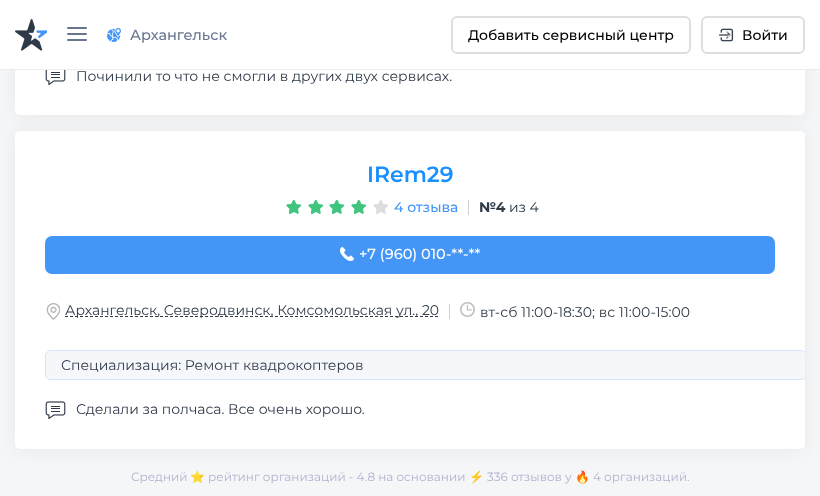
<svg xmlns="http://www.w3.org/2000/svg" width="820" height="496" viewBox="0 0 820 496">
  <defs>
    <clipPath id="clip1"><rect x="15" y="131" width="790" height="318" rx="5"/></clipPath>
  </defs>
  <rect width="100%" height="100%" fill="#f5f6f8"/>
  <rect x="15" y="-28" width="790" height="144" rx="5" fill="#dbdbdb80" filter="blur(7.5px)"/>
  <rect x="15" y="-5" width="790" height="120" rx="5" fill="#fff"/>
  <path d="M0 0h820v69H0z" fill="#fff"/>
  <path d="M0 69h820v1H0z" fill="#ecedee"/>
  <image x="15" y="19" width="32" height="32" href="img/1.png"/>
  <rect x="67" y="27" width="20" height="2" rx="1" fill="#67758e"/>
  <rect x="67" y="33" width="20" height="2" rx="1" fill="#67758e"/>
  <rect x="67" y="39" width="20" height="2" rx="1" fill="#67758e"/>
  <image x="107" y="28" width="14" height="14" href="img/2.png"/>
  <rect x="452" y="17" width="238" height="36" rx="5" fill="none" stroke="#dddfe1" stroke-width="2"/>
  <rect x="702" y="17" width="102" height="36" rx="5" fill="none" stroke="#dddfe1" stroke-width="2"/>
  <image x="719" y="28" width="15" height="14" href="img/3.png"/>
  <image x="45" y="70" width="21" height="15" href="img/4.png"/>
  <rect x="15" y="132" width="790" height="318" rx="5" fill="#dbdbdb80" filter="blur(7.5px)"/>
  <rect x="15" y="131" width="790" height="318" rx="5" fill="#fff"/>
  <image x="286" y="199" width="16" height="15" href="img/5.png"/>
  <image x="286" y="199" width="8" height="15" href="img/6.png"/>
  <image x="308" y="199" width="16" height="15" href="img/5.png"/>
  <image x="308" y="199" width="8" height="15" href="img/6.png"/>
  <image x="329" y="199" width="16" height="15" href="img/5.png"/>
  <image x="329" y="199" width="8" height="15" href="img/6.png"/>
  <image x="351" y="199" width="16" height="15" href="img/5.png"/>
  <image x="351" y="199" width="8" height="15" href="img/6.png"/>
  <image x="373" y="200" width="15" height="14" href="img/7.png"/>
  <image x="373" y="201" width="7" height="13" href="img/8.png"/>
  <path d="M468 200h1v15H468z" fill="#d0d1d5"/>
  <rect x="45" y="236" width="730" height="38" rx="7" fill="#4496f6"/>
  <image x="340" y="247" width="14" height="14" href="img/9.png"/>
  <image x="46" y="303" width="14" height="17" href="img/10.png"/>
  <path d="M65 316.5H439" fill="none" stroke="#2f3a49" stroke-dasharray="3 2"/>
  <path d="M449 304h1v15H449z" fill="#d0d1d5"/>
  <image x="460" y="302" width="15" height="15" href="img/11.png"/>
  <g clip-path="url(#clip1)">
    <rect x="45" y="350" width="762" height="30" rx="6" fill="#f5f7fb"/>
  </g>
  <path d="M51 350C48 350 45 353 45 356V374C45 377 48 380 51 380H801C803 380 804 379 805 378V377C804 378 803 379 801 379H51C48 379 46 377 46 374V356C46 353 48 351 51 351H801C803 351 804 352 805 353V352C804 351 803 350 801 350Z" fill="#d5e5fc"/>
  <image x="45" y="401" width="21" height="18" href="img/12.png"/>
  <text x="130" y="40" font-family="Montserrat" font-size="14.5" font-weight="500" fill="#67758e">Архангельск</text>
  <g font-family="Montserrat" font-size="14" font-weight="500" fill="#000">
    <text x="468" y="40">Добавить сервисный центр</text>
    <text x="742" y="40">Войти</text>
  </g>
  <text x="76" y="81" font-family="Montserrat" font-size="14" fill="#2f3a49">Починили то что не смогли в других двух сервисах.</text>
  <text x="367" y="182" font-family="Montserrat" font-size="22" font-weight="600" fill="#1890ff">IRem29</text>
  <text x="394" y="212" font-family="Montserrat" font-size="14" font-weight="500" fill="#4496f6">4 отзыва</text>
  <text x="479" y="212" font-family="Montserrat" font-size="14" font-weight="bold" fill="#2f3a49">№4</text>
  <text x="509" y="212" font-family="Montserrat" font-size="14" fill="#2f3a49">из 4</text>
  <text x="359" y="259" font-family="Montserrat" font-size="14.5" font-weight="500" fill="#fff">+7 (960) 010-**-**</text>
  <g font-family="Montserrat" font-size="14" fill="#2f3a49">
    <text x="65" y="315">Архангельск, Северодвинск, Комсомольская ул., 20</text>
    <text x="480" y="317">вт-сб 11:00-18:30; вс 11:00-15:00</text>
    <text x="61" y="370">Специализация: Ремонт квадрокоптеров</text>
    <text x="76" y="414">Сделали за полчаса. Все очень хорошо.</text>
  </g>
  <text x="131" y="481" font-family="Montserrat" font-size="12" fill="#afb3ce">Средний</text>
  <text x="190" y="481" font-family="Noto Color Emoji" font-size="12" fill="#afb3ce">⭐</text>
  <text x="208" y="481" font-family="Montserrat" font-size="12" fill="#afb3ce">рейтинг организаций - 4.8 на основании</text>
  <text x="469" y="481" font-family="Noto Color Emoji" font-size="12" fill="#afb3ce">⚡</text>
  <text x="487" y="481" font-family="Montserrat" font-size="12" fill="#afb3ce">336 отзывов у</text>
  <text x="575" y="481" font-family="Noto Color Emoji" font-size="12" fill="#afb3ce">🔥</text>
  <text x="593" y="481" font-family="Montserrat" font-size="12" fill="#afb3ce">4 организаций.</text>
</svg>
